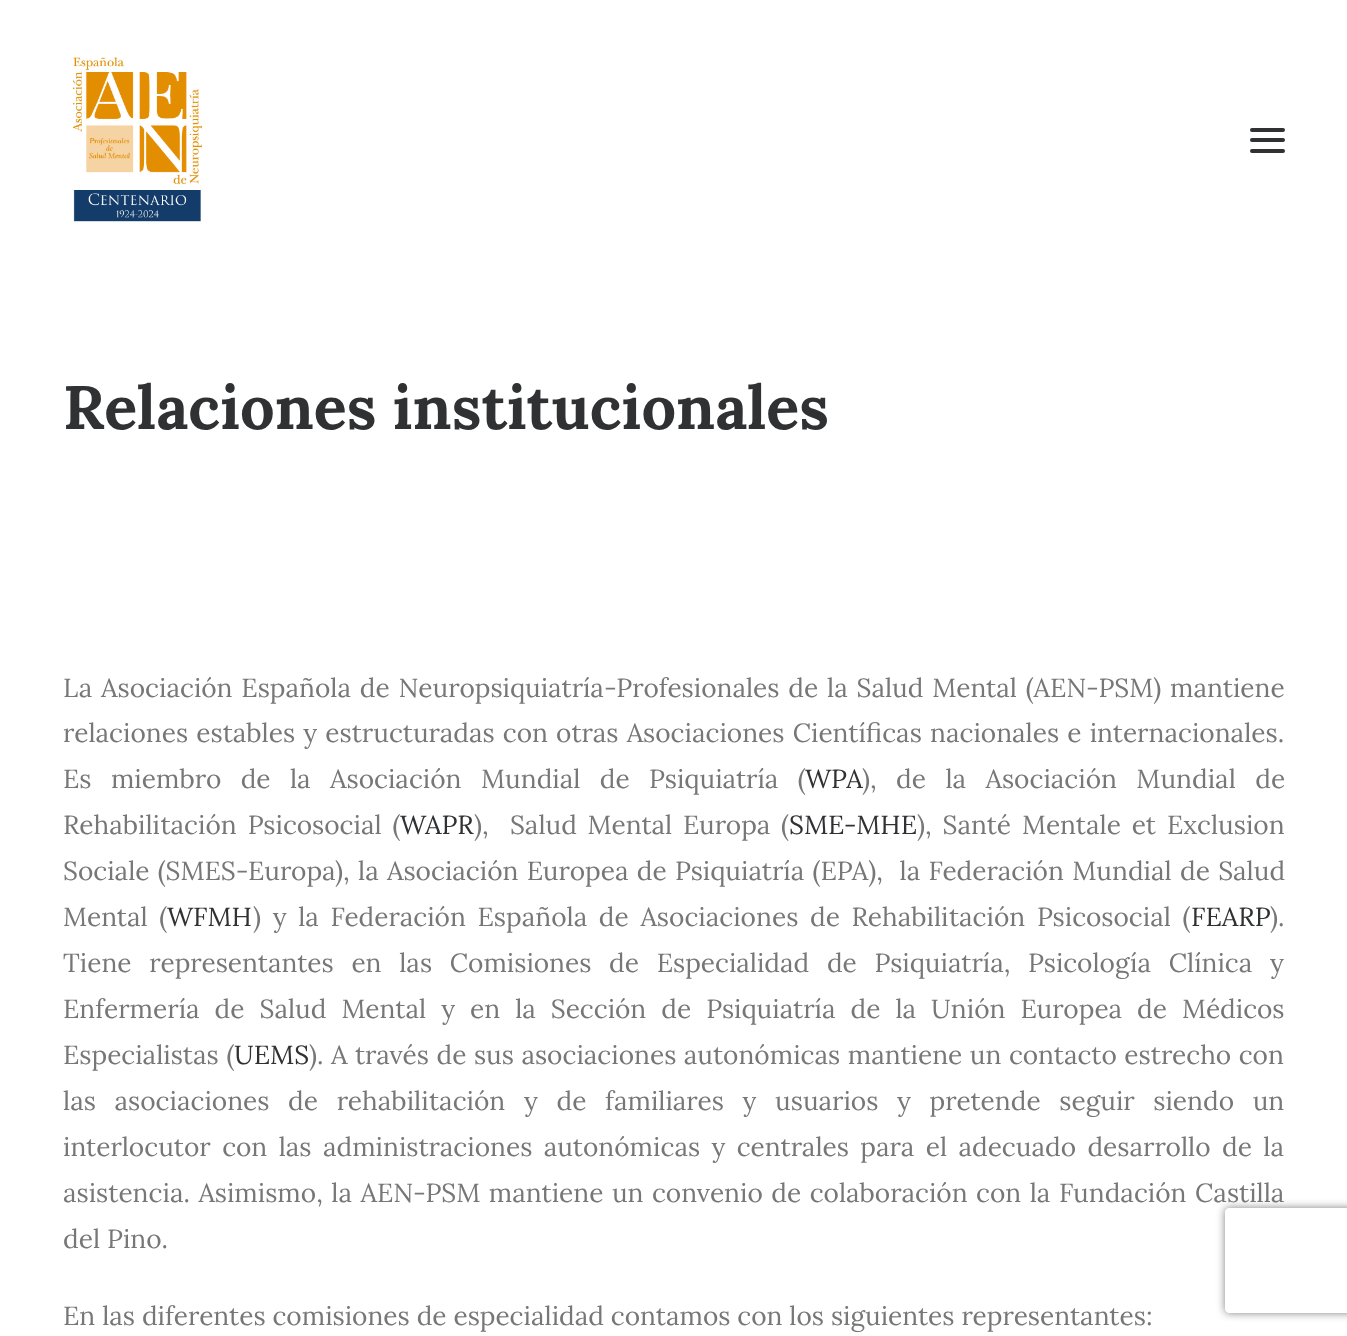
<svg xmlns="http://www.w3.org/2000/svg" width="1347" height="1336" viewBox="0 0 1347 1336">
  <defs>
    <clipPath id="clip1"><path d="M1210 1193H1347V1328H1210ZM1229 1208H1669C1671 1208 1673 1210 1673 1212V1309C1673 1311 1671 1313 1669 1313H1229C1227 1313 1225 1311 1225 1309V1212C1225 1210 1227 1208 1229 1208Z" clip-rule="evenodd"/></clipPath>
  </defs>
  <rect width="100%" height="100%" fill="#fff"/>
  <image x="72" y="57" width="131" height="165" href="img/1.png"/>
  <rect x="1250" y="138" width="35" height="4" rx="2" fill="#303133"/>
  <rect x="1250" y="128" width="35" height="4" rx="2" fill="#303133"/>
  <rect x="1250" y="149" width="35" height="4" rx="2" fill="#303133"/>
  <g clip-path="url(#clip1)">
    <rect x="1225" y="1208" width="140" height="105" rx="4" fill="#808080" filter="blur(4.5px)"/>
  </g>
  <text x="63" y="429" font-family="Lora" font-size="61.25" font-weight="bold" fill="#303133">Relaciones institucionales</text>
  <g font-family="Lora" font-size="26.25" fill="#777">
    <text x="63" y="697" word-spacing="1.9">La Asociación Española de Neuropsiquiatría-Profesionales de la Salud Mental (AEN-PSM) mantiene</text>
    <text x="63" y="742" word-spacing="1.25">relaciones estables y estructuradas con otras Asociaciones Científicas nacionales e internacionales.</text>
    <text x="63" y="788" word-spacing="12.5">Es miembro de la Asociación Mundial de Psiquiatría (</text>
  </g>
  <text x="805" y="788" font-family="Lora" font-size="26.25" fill="#303133">WPA</text>
  <g font-family="Lora" font-size="26.25" fill="#777">
    <text x="862" y="788" word-spacing="12.5">), de la Asociación Mundial de</text>
    <text x="63" y="834" word-spacing="4">Rehabilitación Psicosocial (</text>
  </g>
  <text x="400" y="834" font-family="Lora" font-size="26.25" fill="#303133">WAPR</text>
  <text x="474" y="834" word-spacing="3.75" font-family="Lora" font-size="26.25" fill="#777" xml:space="preserve">),  Salud Mental Europa (</text>
  <text x="789" y="834" font-family="Lora" font-size="26.25" fill="#303133">SME-MHE</text>
  <g font-family="Lora" font-size="26.25" fill="#777">
    <text x="917" y="834" word-spacing="4">), Santé Mentale et Exclusion</text>
    <text x="63" y="880" word-spacing="1.4" xml:space="preserve">Sociale (SMES-Europa), la Asociación Europea de Psiquiatría (EPA),  la Federación Mundial de Salud</text>
    <text x="63" y="926" word-spacing="4.75">Mental (</text>
  </g>
  <text x="167" y="926" font-family="Lora" font-size="26.25" fill="#303133">WFMH</text>
  <text x="253" y="926" word-spacing="4.75" font-family="Lora" font-size="26.25" fill="#777">) y la Federación Española de Asociaciones de Rehabilitación Psicosocial (</text>
  <text x="1191" y="926" font-family="Lora" font-size="26.25" fill="#303133">FEARP</text>
  <g font-family="Lora" font-size="26.25" fill="#777">
    <text x="1270" y="926">).</text>
    <text x="63" y="972" word-spacing="10.75">Tiene representantes en las Comisiones de Especialidad de Psiquiatría, Psicología Clínica y</text>
    <text x="63" y="1018" word-spacing="8.1">Enfermería de Salud Mental y en la Sección de Psiquiatría de la Unión Europea de Médicos</text>
    <text x="63" y="1064" word-spacing="1">Especialistas (</text>
  </g>
  <text x="234" y="1064" font-family="Lora" font-size="26.25" fill="#303133">UEMS</text>
  <g font-family="Lora" font-size="26.25" fill="#777">
    <text x="309" y="1064" word-spacing="0.6">). A través de sus asociaciones autonómicas mantiene un contacto estrecho con</text>
    <text x="63" y="1110" word-spacing="11.75">las asociaciones de rehabilitación y de familiares y usuarios y pretende seguir siendo un</text>
    <text x="63" y="1156" word-spacing="4.5">interlocutor con las administraciones autonómicas y centrales para el adecuado desarrollo de la</text>
    <text x="63" y="1202" word-spacing="1.6">asistencia. Asimismo, la AEN-PSM mantiene un convenio de colaboración con la Fundación Castilla</text>
    <text x="63" y="1248">del Pino.</text>
    <text x="63" y="1325">En las diferentes comisiones de especialidad contamos con los siguientes representantes:</text>
  </g>
</svg>
